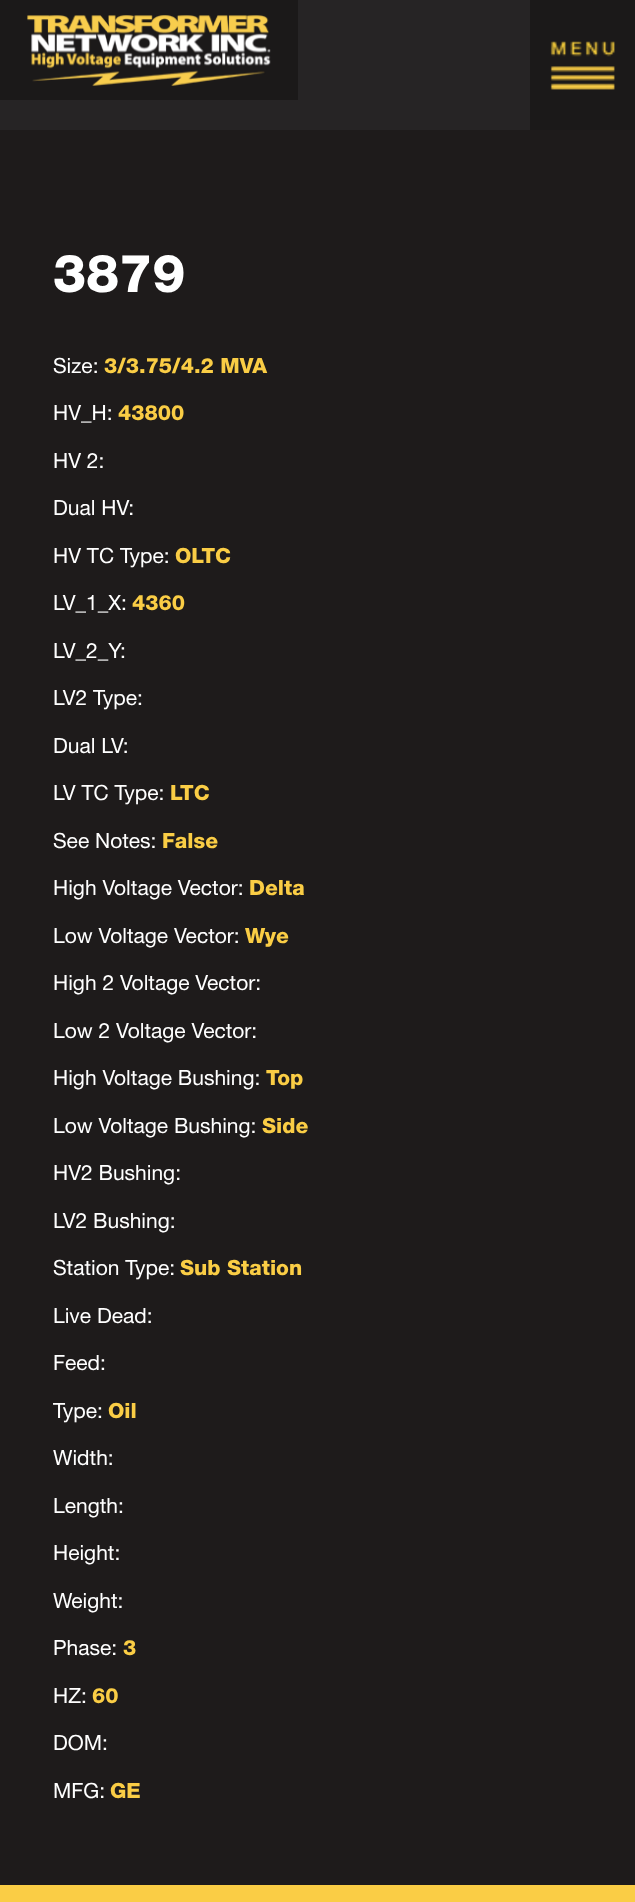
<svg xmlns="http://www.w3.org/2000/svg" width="635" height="1902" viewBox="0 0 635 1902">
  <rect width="100%" height="100%" fill="#1e1b1b"/>
  <path d="M0 0h530v130H0z" fill="#262425"/>
  <path d="M0 0h298v100H0z" fill="#1b1919"/>
  <image x="27" y="15" width="244" height="71" href="img/1.png"/>
  <path d="M530 0h105v130H530z" fill="#1b1919"/>
  <image x="550" y="41" width="65" height="49" href="img/2.png"/>
  <path d="M0 1885h635v17H0z" fill="#facd45"/>
  <text x="53" y="292" font-family="Helvetica Neue" font-size="52.5" font-weight="900" fill="#fff">3879</text>
  <text x="53" y="373" font-family="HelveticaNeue" font-size="21" fill="#fff">Size:</text>
  <text x="104" y="373" font-family="Helvetica Neue" font-size="21" font-weight="900" fill="#facd45">3/3.75/4.2 MVA</text>
  <text x="53" y="420" font-family="HelveticaNeue" font-size="21" fill="#fff">HV_H:</text>
  <text x="118" y="420" font-family="Helvetica Neue" font-size="21" font-weight="900" fill="#facd45">43800</text>
  <g font-family="HelveticaNeue" font-size="21" fill="#fff">
    <text x="53" y="468">HV 2:</text>
    <text x="53" y="515">Dual HV:</text>
    <text x="53" y="563">HV TC Type:</text>
  </g>
  <text x="175" y="563" font-family="Helvetica Neue" font-size="21" font-weight="900" fill="#facd45">OLTC</text>
  <text x="53" y="610" font-family="HelveticaNeue" font-size="21" fill="#fff">LV_1_X:</text>
  <text x="132" y="610" font-family="Helvetica Neue" font-size="21" font-weight="900" fill="#facd45">4360</text>
  <g font-family="HelveticaNeue" font-size="21" fill="#fff">
    <text x="53" y="658">LV_2_Y:</text>
    <text x="53" y="705">LV2 Type:</text>
    <text x="53" y="753">Dual LV:</text>
    <text x="53" y="800">LV TC Type:</text>
  </g>
  <text x="170" y="800" font-family="Helvetica Neue" font-size="21" font-weight="900" fill="#facd45">LTC</text>
  <text x="53" y="848" font-family="HelveticaNeue" font-size="21" fill="#fff">See Notes:</text>
  <text x="162" y="848" font-family="Helvetica Neue" font-size="21" font-weight="900" fill="#facd45">False</text>
  <text x="53" y="895" font-family="HelveticaNeue" font-size="21" fill="#fff">High Voltage Vector:</text>
  <text x="249" y="895" font-family="Helvetica Neue" font-size="21" font-weight="900" fill="#facd45">Delta</text>
  <text x="53" y="943" font-family="HelveticaNeue" font-size="21" fill="#fff">Low Voltage Vector:</text>
  <text x="245" y="943" font-family="Helvetica Neue" font-size="21" font-weight="900" fill="#facd45">Wye</text>
  <g font-family="HelveticaNeue" font-size="21" fill="#fff">
    <text x="53" y="990">High 2 Voltage Vector:</text>
    <text x="53" y="1038">Low 2 Voltage Vector:</text>
    <text x="53" y="1085">High Voltage Bushing:</text>
  </g>
  <text x="266" y="1085" font-family="Helvetica Neue" font-size="21" font-weight="900" fill="#facd45">Top</text>
  <text x="53" y="1133" font-family="HelveticaNeue" font-size="21" fill="#fff">Low Voltage Bushing:</text>
  <text x="262" y="1133" font-family="Helvetica Neue" font-size="21" font-weight="900" fill="#facd45">Side</text>
  <g font-family="HelveticaNeue" font-size="21" fill="#fff">
    <text x="53" y="1180">HV2 Bushing:</text>
    <text x="53" y="1228">LV2 Bushing:</text>
    <text x="53" y="1275">Station Type:</text>
  </g>
  <text x="180" y="1275" font-family="Helvetica Neue" font-size="21" font-weight="900" fill="#facd45">Sub Station</text>
  <g font-family="HelveticaNeue" font-size="21" fill="#fff">
    <text x="53" y="1323">Live Dead:</text>
    <text x="53" y="1370">Feed:</text>
    <text x="53" y="1418">Type:</text>
  </g>
  <text x="108" y="1418" font-family="Helvetica Neue" font-size="21" font-weight="900" fill="#facd45">Oil</text>
  <g font-family="HelveticaNeue" font-size="21" fill="#fff">
    <text x="53" y="1465">Width:</text>
    <text x="53" y="1513">Length:</text>
    <text x="53" y="1560">Height:</text>
    <text x="53" y="1608">Weight:</text>
    <text x="53" y="1655">Phase:</text>
  </g>
  <text x="123" y="1655" font-family="Helvetica Neue" font-size="21" font-weight="900" fill="#facd45">3</text>
  <text x="53" y="1703" font-family="HelveticaNeue" font-size="21" fill="#fff">HZ:</text>
  <text x="92" y="1703" font-family="Helvetica Neue" font-size="21" font-weight="900" fill="#facd45">60</text>
  <g font-family="HelveticaNeue" font-size="21" fill="#fff">
    <text x="53" y="1750">DOM:</text>
    <text x="53" y="1798">MFG:</text>
  </g>
  <text x="110" y="1798" font-family="Helvetica Neue" font-size="21" font-weight="900" fill="#facd45">GE</text>
</svg>
